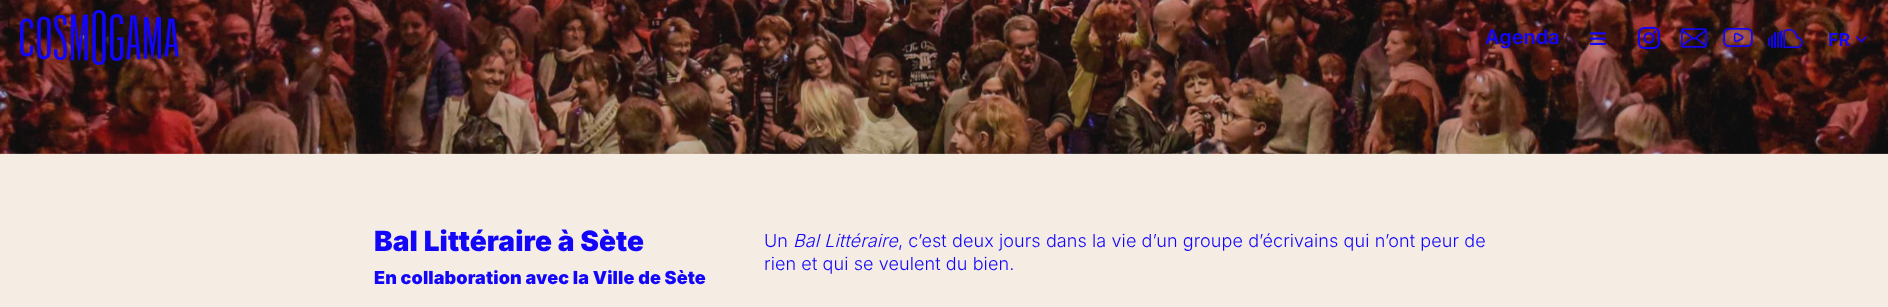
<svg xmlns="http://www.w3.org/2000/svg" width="1888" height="307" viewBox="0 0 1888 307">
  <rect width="100%" height="100%" fill="#f5ede4"/>
  <image x="0" y="0" width="1888" height="154" href="img/8.png"/>
  <image x="20" y="10" width="159" height="55" href="img/1.png"/>
  <image x="1590" y="32" width="16" height="13" href="img/2.png"/>
  <image x="1637" y="26" width="24" height="24" href="img/3.png"/>
  <image x="1681" y="28" width="26" height="20" href="img/4.png"/>
  <image x="1723" y="28" width="30" height="19" href="img/5.png"/>
  <image x="1768" y="29" width="35" height="19" href="img/6.png"/>
  <image x="1855" y="36" width="12" height="7" href="img/7.png"/>
  <text x="1485" y="44" font-family="Inter" font-size="20" font-weight="600" fill="#1205fa">Agenda</text>
  <text x="1828" y="46" font-family="Inter" font-size="18" font-weight="600" fill="#1205fa">FR</text>
  <text x="374" y="251" font-family="Inter" font-size="28" font-weight="900" letter-spacing="0.1" fill="#1205fa">Bal Littéraire à Sète</text>
  <text x="374" y="284" font-family="Inter" font-size="18" font-weight="900" letter-spacing="0.1" fill="#1205fa">En collaboration avec la Ville de Sète</text>
  <text x="764" y="247" font-family="Inter" font-size="18" font-weight="300" letter-spacing="0.1" fill="#1205fa">Un</text>
  <text x="793" y="247" font-family="Inter" font-size="18" font-weight="300" font-style="italic" letter-spacing="0.1" fill="#1205fa">Bal Littéraire</text>
  <g font-family="Inter" font-size="18" font-weight="300" letter-spacing="0.1" fill="#1205fa">
    <text x="898" y="247">, c’est deux jours dans la vie d’un groupe d’écrivains qui n’ont peur de</text>
    <text x="764" y="270">rien et qui se veulent du bien.</text>
  </g>
</svg>
